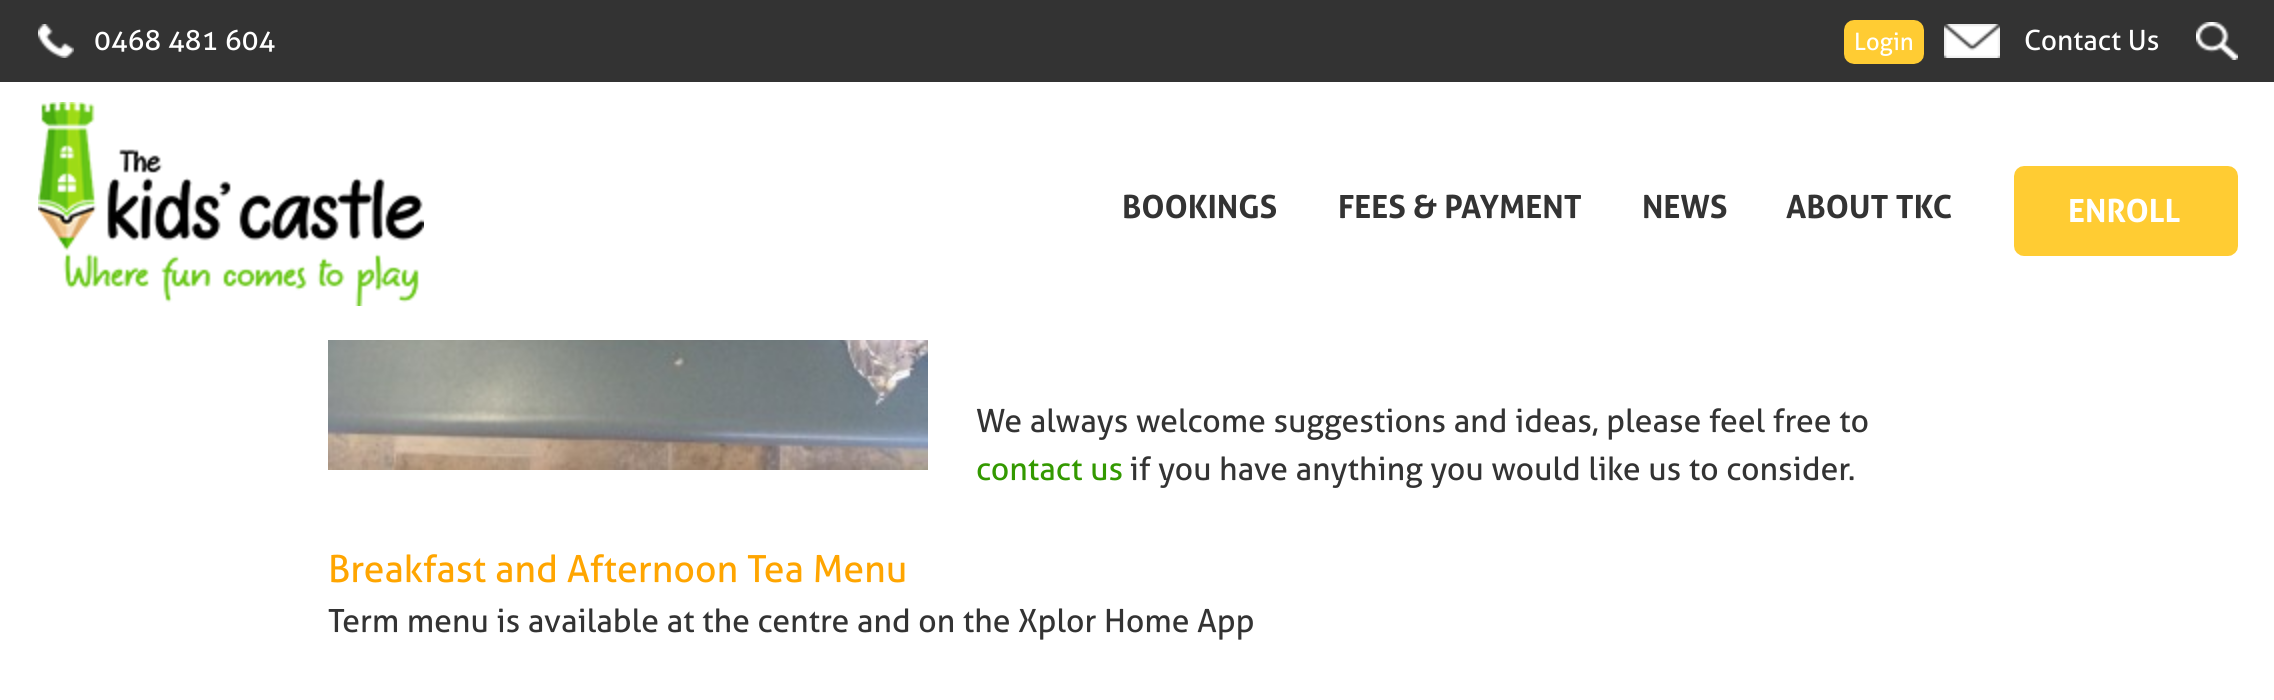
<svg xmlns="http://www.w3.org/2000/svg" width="2274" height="700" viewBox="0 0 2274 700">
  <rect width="100%" height="100%" fill="#fff"/>
  <path d="M0 0h2274v82H0z" fill="#333"/>
  <image x="38" y="24" width="36" height="34" href="img/1.png"/>
  <image x="95" y="29" width="180" height="23" href="img/2.png"/>
  <rect x="1844" y="20" width="80" height="44" rx="10" fill="#fc3"/>
  <image x="1856" y="32" width="56" height="24" href="img/3.png"/>
  <image x="1944" y="24" width="56" height="34" href="img/4.png"/>
  <image x="2025" y="29" width="134" height="22" href="img/5.png"/>
  <image x="2196" y="22" width="42" height="38" href="img/6.png"/>
  <image x="38" y="102" width="386" height="204" href="img/7.png"/>
  <image x="1124" y="194" width="152" height="25" href="img/8.png"/>
  <image x="1340" y="194" width="241" height="25" href="img/9.png"/>
  <image x="1644" y="194" width="83" height="25" href="img/10.png"/>
  <image x="1786" y="194" width="166" height="25" href="img/11.png"/>
  <rect x="2014" y="166" width="224" height="90" rx="10" fill="#fc3"/>
  <image x="2070" y="198" width="110" height="25" href="img/12.png"/>
  <image x="328" y="340" width="600" height="130" href="img/13.png"/>
  <image x="976" y="408" width="892" height="32" href="img/14.png"/>
  <image x="977" y="459" width="145" height="22" href="img/15.png"/>
  <image x="1130" y="456" width="724" height="32" href="img/16.png"/>
  <image x="331" y="554" width="574" height="29" href="img/17.png"/>
  <image x="328" y="608" width="925" height="32" href="img/18.png"/>
</svg>
